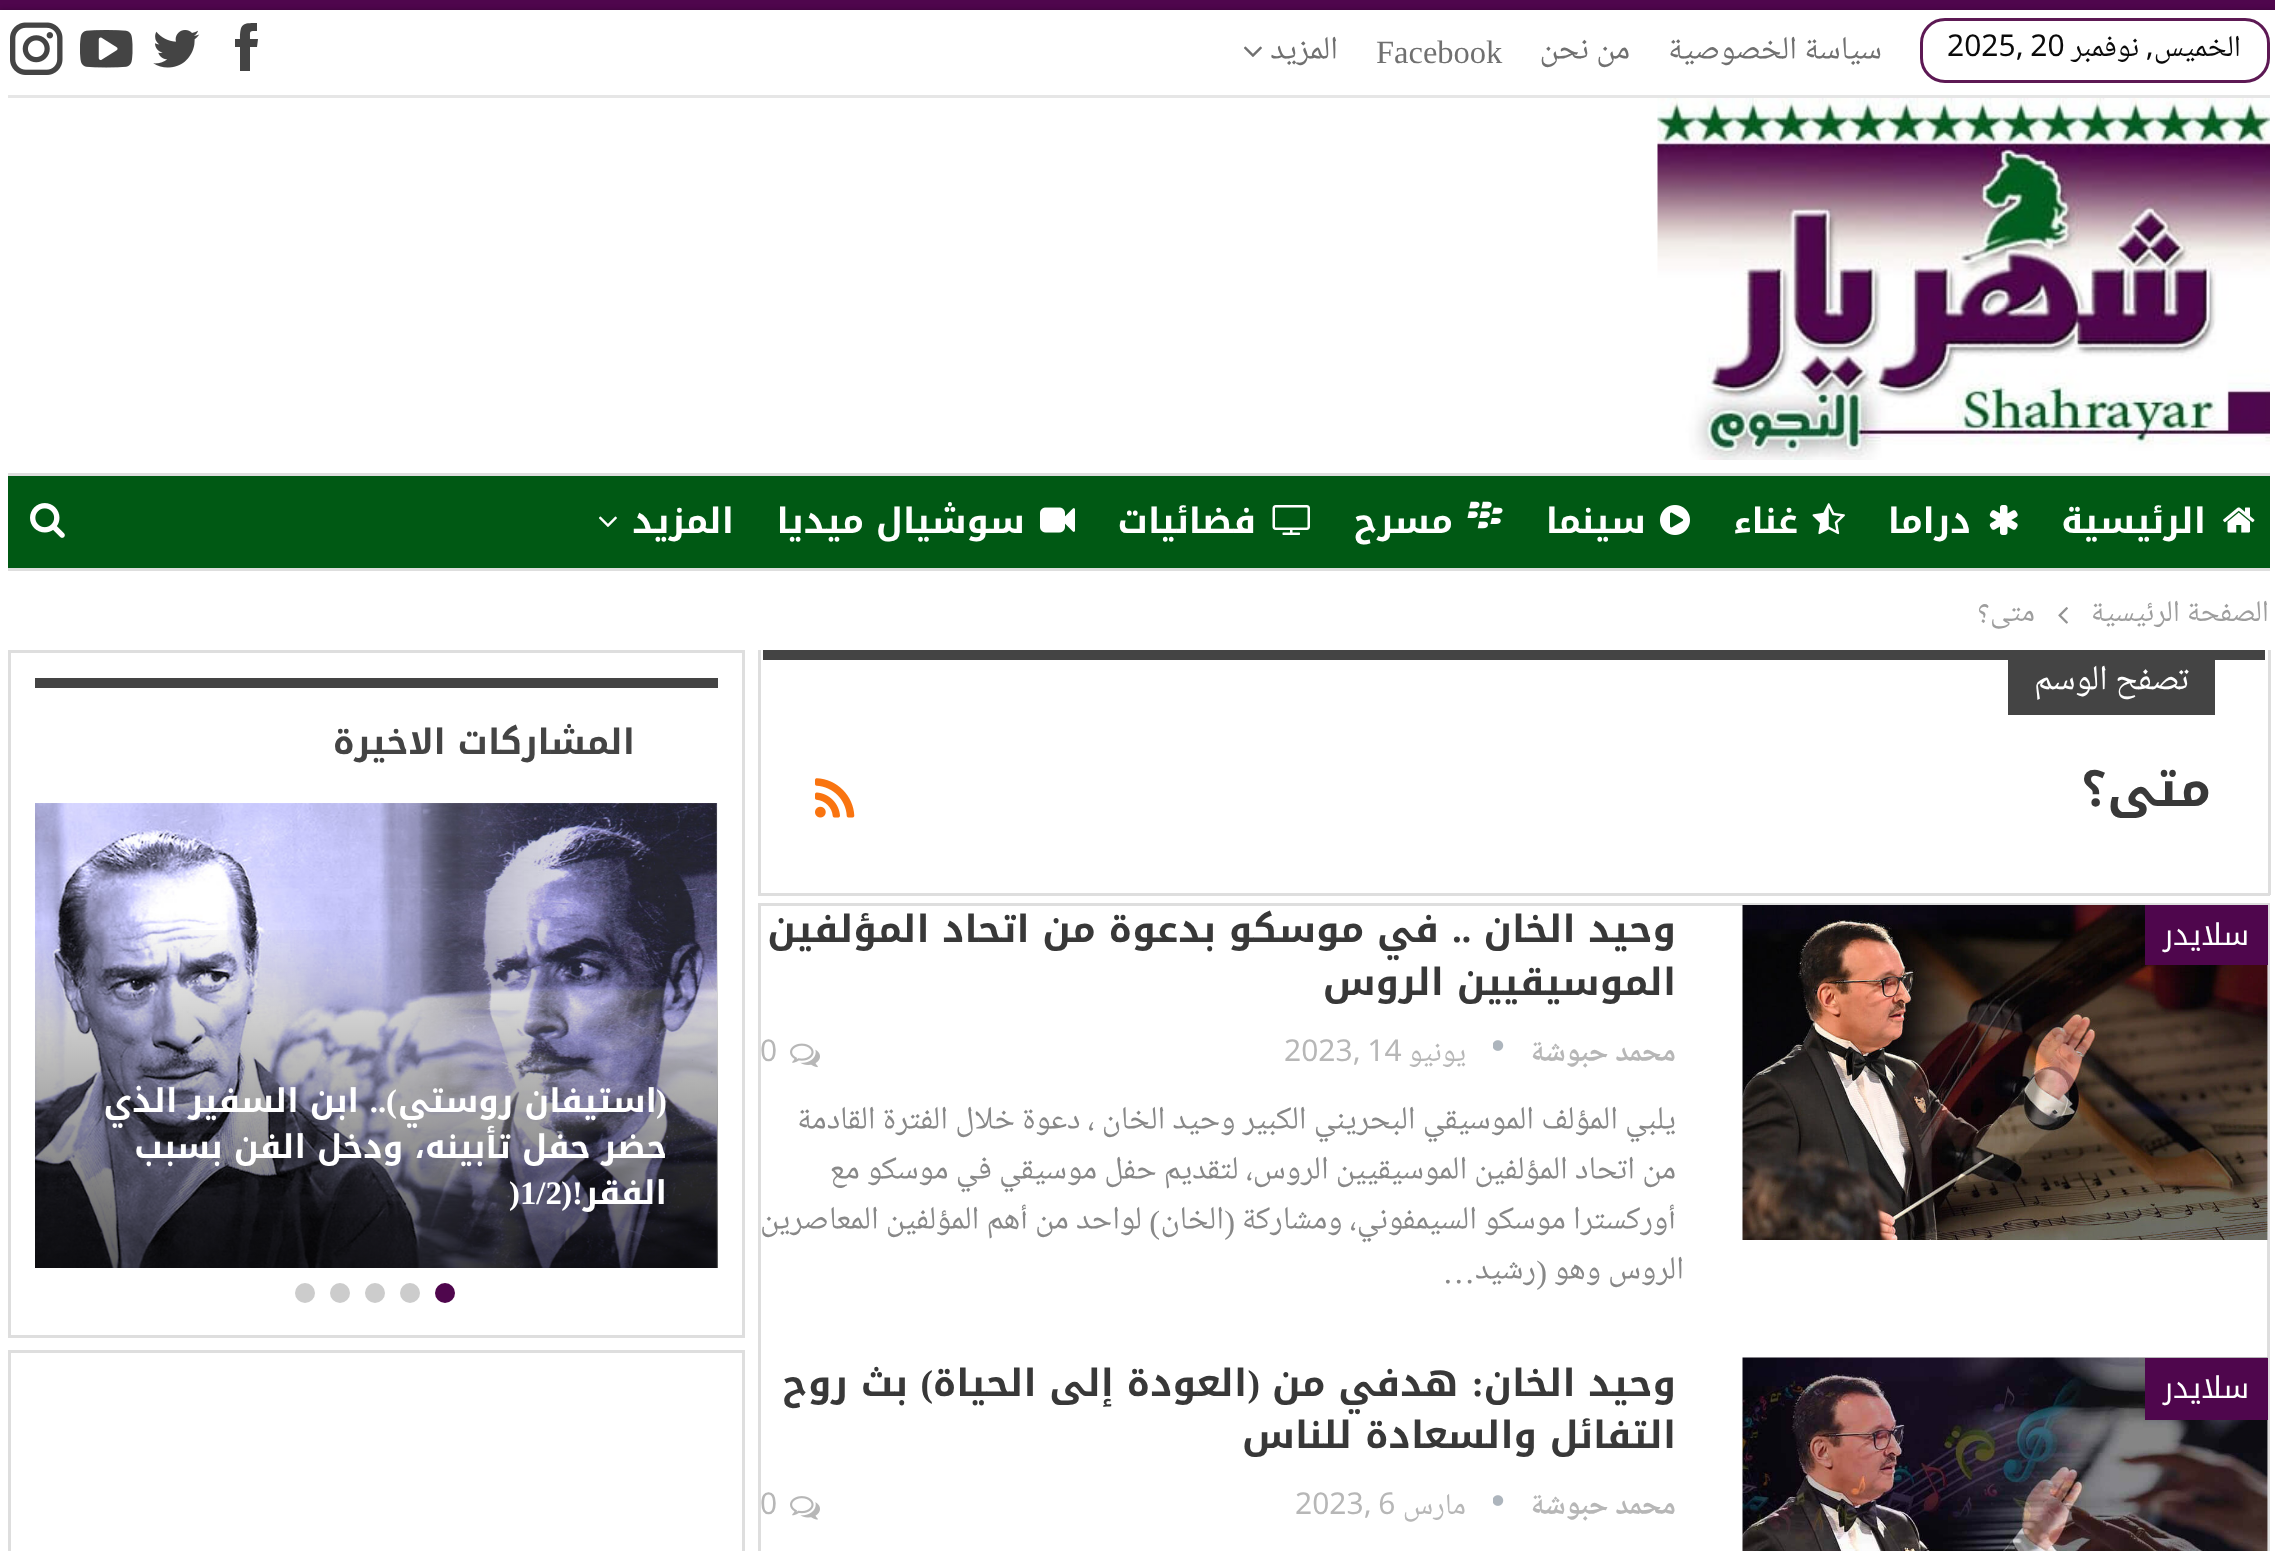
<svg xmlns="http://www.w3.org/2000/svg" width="2275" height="1551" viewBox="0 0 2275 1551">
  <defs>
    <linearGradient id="g1" gradientUnits="userSpaceOnUse" x1="375" y1="918" x2="375" y2="1268"><stop offset="0" stop-color="#000" stop-opacity="0"/><stop offset="1" stop-color="#000" stop-opacity="0.65"/></linearGradient>
  </defs>
  <rect width="100%" height="100%" fill="#4f064d"/>
  <path d="M0 10h2275v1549H0z" fill="#00000045" filter="blur(2.5px)"/>
  <path d="M0 10h2275v1541H0z" fill="#fff"/>
  <path d="M8 95h2262v3H8z" fill="#e6e6e6"/>
  <rect x="1921.5" y="19.5" width="347" height="62" rx="23.5" fill="none" stroke="#5d1954" stroke-width="3"/>
  <image x="1244" y="46" width="18" height="11" href="img/1.png"/>
  <path d="M250 39C250 31 249 31 257 31V23C243 23 240 23 240 39H235V47H240V71H250V47H257L258 39Z" fill="#444"/>
  <image x="153" y="30" width="47" height="38" href="img/2.png"/>
  <image x="80" y="30" width="53" height="38" href="img/3.png"/>
  <image x="10" y="22" width="53" height="53" href="img/4.png"/>
  <image x="1657" y="98" width="613" height="362" href="img/5.png"/>
  <path d="M8 476h2262v92H8z" fill="#005914"/>
  <path d="M8 473h2262v3H8z" fill="#dedede"/>
  <path d="M8 568h2262v3H8z" fill="#dedede"/>
  <image x="2223" y="507" width="32" height="26" href="img/6.png"/>
  <image x="1989" y="505" width="29" height="30" href="img/7.png"/>
  <image x="1812" y="503" width="33" height="32" href="img/8.png"/>
  <image x="1660" y="505" width="30" height="30" href="img/9.png"/>
  <image x="1467" y="501" width="36" height="28" href="img/10.png"/>
  <image x="1272" y="505" width="38" height="30" href="img/11.png"/>
  <image x="1040" y="507" width="35" height="26" href="img/12.png"/>
  <image x="599" y="516" width="18" height="11" href="img/13.png"/>
  <image x="30" y="503" width="35" height="35" href="img/14.png"/>
  <image x="2058" y="607" width="10" height="17" href="img/15.png"/>
  <path d="M2268 650h3v245H2268z" fill="#dedede"/>
  <path d="M758 893h1512v3H758z" fill="#dedede"/>
  <path d="M758 650h3v245H758z" fill="#dedede"/>
  <path d="M763 650h1502v10H763z" fill="#444"/>
  <path d="M2008 660h207v55H2008z" fill="#444"/>
  <image x="815" y="778" width="40" height="40" href="img/16.png"/>
  <path d="M759.5 904.5h1509v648H759.5z" fill="none" stroke="#dedede" stroke-width="3"/>
  <path d="M2267 965h1v275H2267z" fill="#f5f5f5"/>
  <image x="1742" y="905" width="526" height="335" href="img/17.png"/>
  <path d="M2145 905h123v60H2145z" fill="#4f064d"/>
  <image x="1493" y="1040" width="11" height="11" href="img/18.png"/>
  <image x="790" y="1043" width="30" height="25" href="img/19.png"/>
  <path d="M2267 1420h1v131H2267z" fill="#f5f5f5"/>
  <image x="1742" y="1357" width="526" height="194" href="img/20.png"/>
  <path d="M2145 1358h123v62H2145z" fill="#4f064d"/>
  <image x="1493" y="1495" width="11" height="11" href="img/18.png"/>
  <image x="790" y="1496" width="30" height="24" href="img/21.png"/>
  <path d="M9.5 651.5h734v685H9.5z" fill="none" stroke="#dedede" stroke-width="3"/>
  <path d="M35 678h683v10H35z" fill="#444"/>
  <path d="M35 803h683v465H35z" fill="#f5f5f5"/>
  <image x="35" y="803" width="682" height="465" href="img/22.png"/>
  <path d="M35 930h683v338H35z" fill="url(#g1)"/>
  <circle cx="445" cy="1293" r="10" fill="#4f064d"/>
  <circle cx="410" cy="1293" r="10" fill="#ccc"/>
  <circle cx="375" cy="1293" r="10" fill="#ccc"/>
  <circle cx="340" cy="1293" r="10" fill="#ccc"/>
  <circle cx="305" cy="1293" r="10" fill="#ccc"/>
  <path d="M9.5 1351.5h734v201H9.5z" fill="none" stroke="#dedede" stroke-width="3"/>
  <text x="2241" y="60" font-family="Noto Naskh Arabic UI" font-size="30" direction="rtl" fill="#0a0a0a">الخميس, نوفمبر</text>
  <text x="1947" y="60" font-family="Noto Naskh Arabic UI" font-size="30" fill="#0a0a0a">2025, 20</text>
  <g font-family="Noto Naskh Arabic UI" font-size="32.5" direction="rtl" fill="#707070">
    <text x="1882" y="63">سياسة الخصوصية</text>
    <text x="1630" y="63">من نحن</text>
  </g>
  <text x="1376" y="63" font-family="Liberation Serif" font-size="32.5" fill="#707070">Facebook</text>
  <text x="1338" y="63" font-family="Noto Naskh Arabic UI" font-size="32.5" direction="rtl" fill="#707070">المزيد</text>
  <g font-family="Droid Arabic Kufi" font-size="35" font-weight="bold" direction="rtl" fill="#fff">
    <text x="2206" y="533">الرئيسية</text>
    <text x="1971" y="533">دراما</text>
    <text x="1798" y="533">غناء</text>
    <text x="1646" y="533">سينما</text>
    <text x="1453" y="533">مسرح</text>
    <text x="1256" y="533">فضائيات</text>
    <text x="1025" y="533">سوشيال ميديا</text>
    <text x="734" y="533">المزيد</text>
  </g>
  <g font-family="Noto Naskh Arabic UI" font-size="30" direction="rtl" fill="#9e9e9e">
    <text x="2269" y="625">الصفحة الرئيسية</text>
    <text x="2035" y="625">متى؟</text>
  </g>
  <text x="2189" y="694" font-family="Noto Naskh Arabic UI" font-size="35" direction="rtl" fill="#fff">تصفح الوسم</text>
  <text x="2211" y="806" font-family="Droid Arabic Kufi" font-size="50" font-weight="bold" direction="rtl" fill="#383838">متى؟</text>
  <text x="2249" y="945" font-family="Noto Kufi Arabic" font-size="30" direction="rtl" fill="#fff">سلايدر</text>
  <text x="1676" y="942" font-family="Droid Arabic Kufi" font-size="37.5" font-weight="bold" direction="rtl" fill="#383838">وحيد الخان</text>
  <text x="1471" y="942" font-family="Liberation Serif" font-size="37.5" font-weight="bold" direction="rtl" fill="#383838">..</text>
  <g font-family="Droid Arabic Kufi" font-size="37.5" font-weight="bold" direction="rtl" fill="#383838">
    <text x="1439" y="942">في موسكو بدعوة من اتحاد المؤلفين</text>
    <text x="1676" y="995">الموسيقيين الروس</text>
  </g>
  <text x="1676" y="1065" font-family="Noto Naskh Arabic UI" font-size="30" font-weight="bold" direction="rtl" fill="#b7b7b7">محمد حبوشة</text>
  <text x="1466" y="1065" font-family="Noto Naskh Arabic UI" font-size="30" direction="rtl" fill="#b7b7b7">يونيو</text>
  <g font-family="Noto Naskh Arabic UI" font-size="30" fill="#b7b7b7">
    <text x="1284" y="1065">2023, 14</text>
    <text x="760" y="1065">0</text>
  </g>
  <g font-family="Noto Naskh Arabic UI" font-size="32.5" direction="rtl" fill="#888">
    <text x="1676" y="1133">يلبي المؤلف الموسيقي البحريني الكبير وحيد الخان ، دعوة خلال الفترة القادمة</text>
    <text x="1676" y="1183">من اتحاد المؤلفين الموسيقيين الروس، لتقديم حفل موسيقي في موسكو مع</text>
    <text x="1676" y="1233">أوركسترا موسكو السيمفوني، ومشاركة</text>
  </g>
  <text x="1235" y="1233" font-family="Liberation Serif" font-size="32.5" direction="rtl" fill="#888">(</text>
  <text x="1224" y="1233" font-family="Noto Naskh Arabic UI" font-size="32.5" direction="rtl" fill="#888">الخان</text>
  <text x="1160" y="1233" font-family="Liberation Serif" font-size="32.5" direction="rtl" fill="#888">)</text>
  <g font-family="Noto Naskh Arabic UI" font-size="32.5" direction="rtl" fill="#888">
    <text x="1142" y="1233">لواحد من أهم المؤلفين المعاصرين</text>
    <text x="1684" y="1283">الروس وهو</text>
  </g>
  <text x="1547" y="1283" font-family="Liberation Serif" font-size="32.5" direction="rtl" fill="#888">(</text>
  <text x="1536" y="1283" font-family="Noto Naskh Arabic UI" font-size="32.5" direction="rtl" fill="#888">رشيد</text>
  <text x="1475" y="1283" font-family="Liberation Serif" font-size="32.5" direction="rtl" fill="#888">…</text>
  <text x="2249" y="1398" font-family="Noto Kufi Arabic" font-size="30" direction="rtl" fill="#fff">سلايدر</text>
  <text x="1676" y="1396" font-family="Droid Arabic Kufi" font-size="37.5" font-weight="bold" direction="rtl" fill="#383838">وحيد الخان</text>
  <text x="1484" y="1396" font-family="Liberation Serif" font-size="37.5" font-weight="bold" direction="rtl" fill="#383838">:</text>
  <text x="1458" y="1396" font-family="Droid Arabic Kufi" font-size="37.5" font-weight="bold" direction="rtl" fill="#383838">هدفي من</text>
  <text x="1260" y="1396" font-family="Liberation Serif" font-size="37.5" font-weight="bold" direction="rtl" fill="#383838">(</text>
  <text x="1247" y="1396" font-family="Droid Arabic Kufi" font-size="37.5" font-weight="bold" direction="rtl" fill="#383838">العودة إلى الحياة</text>
  <text x="933" y="1396" font-family="Liberation Serif" font-size="37.5" font-weight="bold" direction="rtl" fill="#383838">)</text>
  <g font-family="Droid Arabic Kufi" font-size="37.5" font-weight="bold" direction="rtl" fill="#383838">
    <text x="908" y="1396">بث روح</text>
    <text x="1676" y="1448">التفائل والسعادة للناس</text>
  </g>
  <text x="1676" y="1518" font-family="Noto Naskh Arabic UI" font-size="30" font-weight="bold" direction="rtl" fill="#b7b7b7">محمد حبوشة</text>
  <text x="1466" y="1518" font-family="Noto Naskh Arabic UI" font-size="30" direction="rtl" fill="#b7b7b7">مارس</text>
  <g font-family="Noto Naskh Arabic UI" font-size="30" fill="#b7b7b7">
    <text x="1295" y="1518">2023, 6</text>
    <text x="760" y="1518">0</text>
  </g>
  <text x="635" y="754" font-family="Droid Arabic Kufi" font-size="35" font-weight="bold" direction="rtl" fill="#444">المشاركات الاخيرة</text>
  <text x="667" y="1112" font-family="Liberation Serif" font-size="32.75" font-weight="bold" direction="rtl" fill="#fff">(</text>
  <text x="657" y="1112" font-family="Droid Arabic Kufi" font-size="32.75" font-weight="bold" direction="rtl" fill="#fff">استيفان روستي</text>
  <text x="397" y="1112" font-family="Liberation Serif" font-size="32.75" font-weight="bold" direction="rtl" fill="#fff">)..</text>
  <g font-family="Droid Arabic Kufi" font-size="32.75" font-weight="bold" direction="rtl" fill="#fff">
    <text x="359" y="1112">ابن السفير الذي</text>
    <text x="667" y="1158">حضر حفل تأبينه، ودخل الفن بسبب</text>
  </g>
  <text x="583" y="1204" font-family="Liberation Serif" font-size="32.75" font-weight="bold" direction="rtl" fill="#fff">!(</text>
  <text x="667" y="1204" font-family="Droid Arabic Kufi" font-size="32.75" font-weight="bold" direction="rtl" fill="#fff">الفقر</text>
  <text x="509" y="1204" font-family="Liberation Serif" font-size="32.75" font-weight="bold" fill="#fff">)1/2</text>
</svg>
